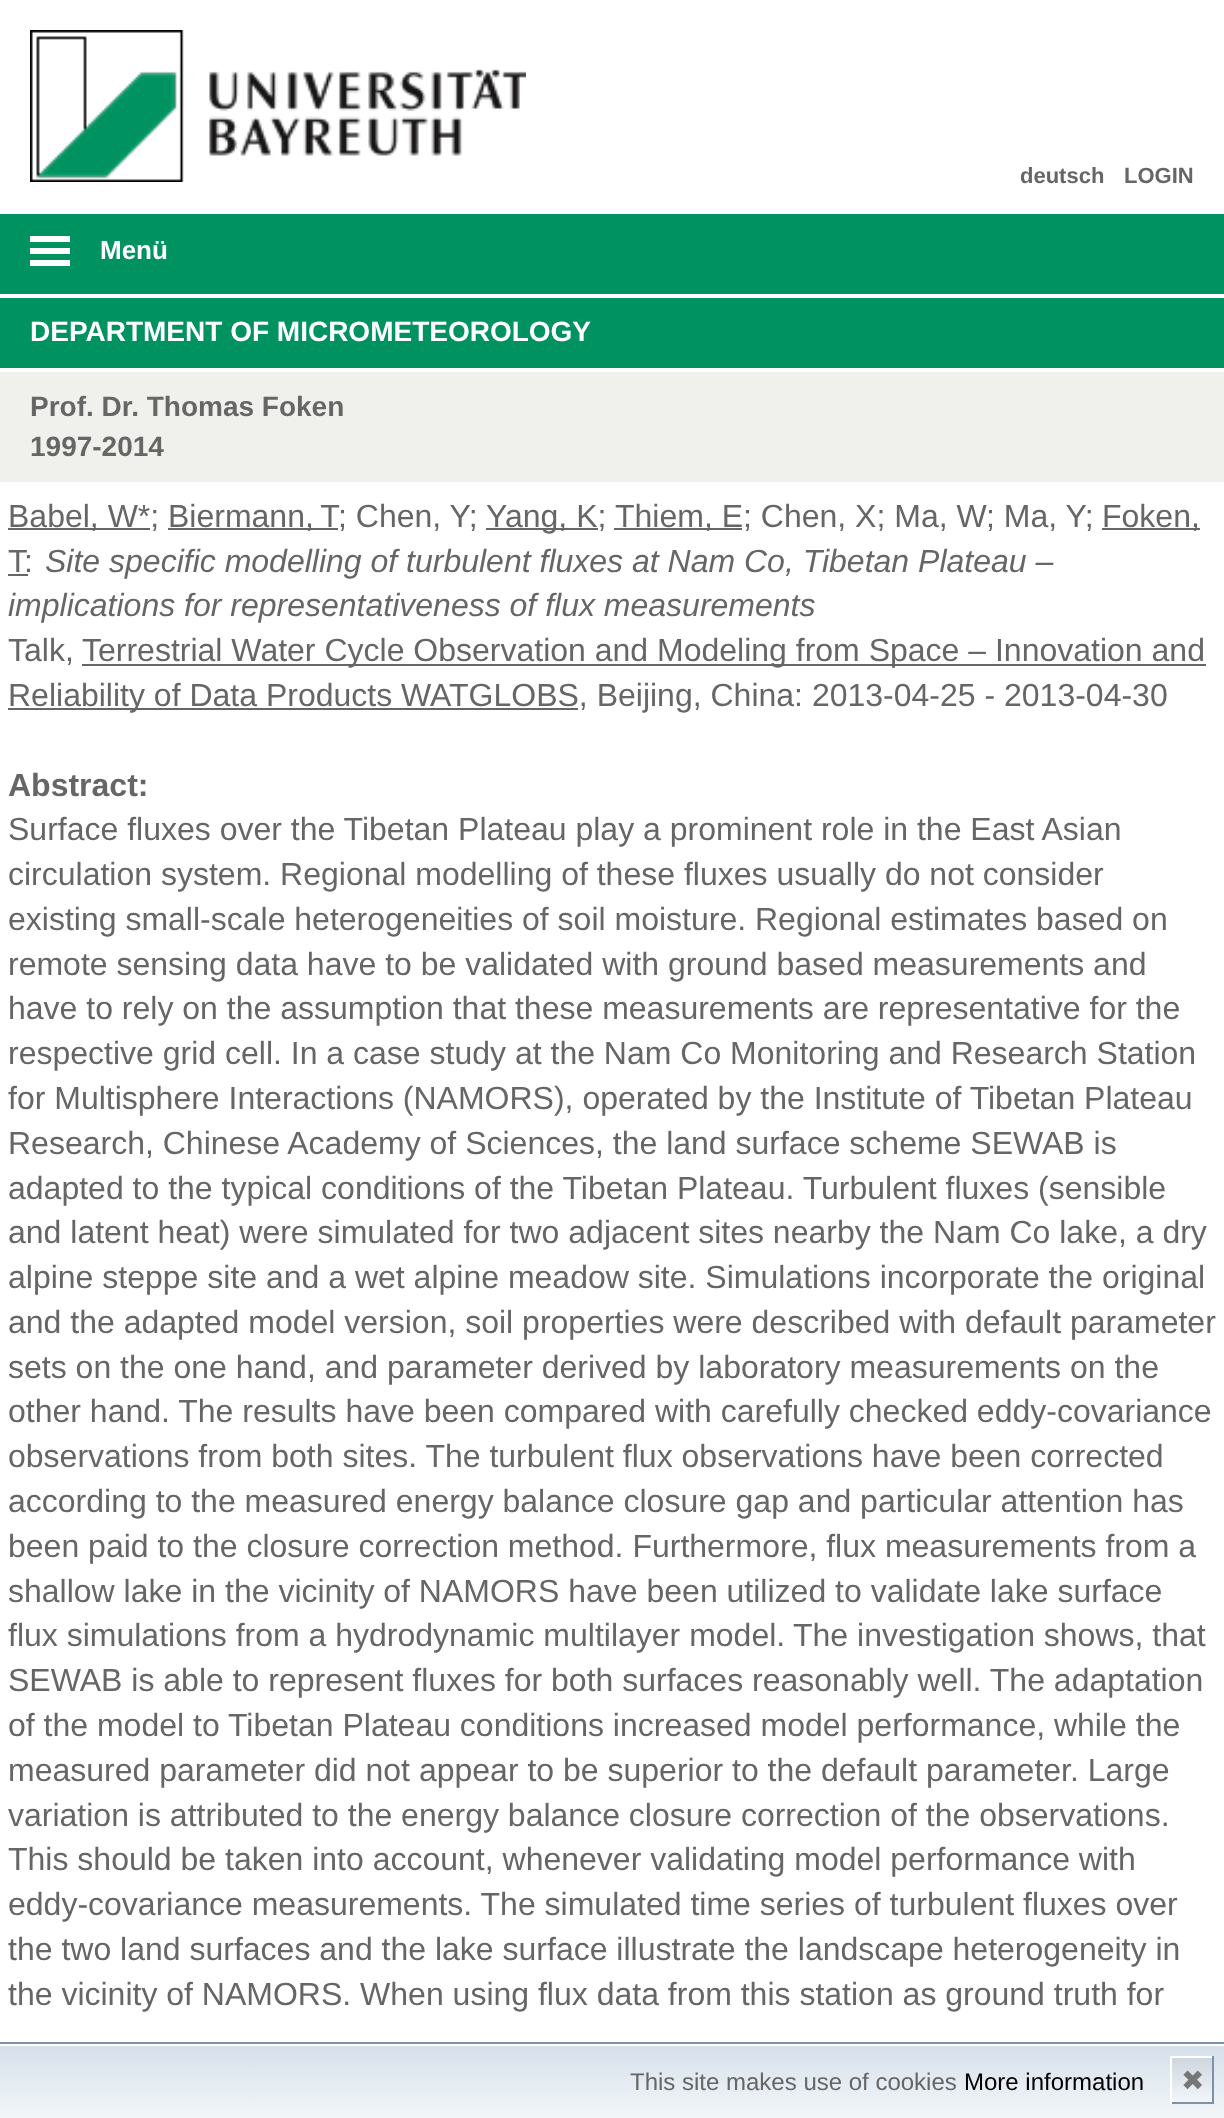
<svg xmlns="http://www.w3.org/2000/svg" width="1224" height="2118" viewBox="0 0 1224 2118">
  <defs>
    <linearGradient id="g1" gradientUnits="userSpaceOnUse" x1="612" y1="2046" x2="612" y2="2118"><stop offset="0" stop-color="#d6e0eb"/><stop offset="1" stop-color="#f2f6f9"/></linearGradient>
    <linearGradient id="g2" gradientUnits="userSpaceOnUse" x1="1192" y1="2058" x2="1192" y2="2102"><stop offset="0" stop-color="#ced6df"/><stop offset="1" stop-color="#f2f6f9"/></linearGradient>
  </defs>
  <rect width="100%" height="100%" fill="#fff"/>
  <image x="30" y="30" width="496" height="152" href="img/1.png"/>
  <path d="M0 214h1224v80H0z" fill="#009260"/>
  <path d="M30 236h40v6H30z" fill="#fff"/>
  <path d="M30 248h40v6H30z" fill="#fff"/>
  <path d="M30 260h40v6H30z" fill="#fff"/>
  <path d="M0 298h1224v70H0z" fill="#009260"/>
  <path d="M0 372h1224v110H0z" fill="#f0f0ed"/>
  <path d="M8 528h142v2H8z" fill="#666"/>
  <path d="M168 528h170v2H168z" fill="#666"/>
  <path d="M486 528h112v2H486z" fill="#666"/>
  <path d="M614 528h128v2H614z" fill="#666"/>
  <path d="M1102 528h98v2H1102z" fill="#666"/>
  <path d="M8 574h20v2H8z" fill="#666"/>
  <path d="M82 664h1124v2H82z" fill="#666"/>
  <path d="M8 708h570v2H8z" fill="#666"/>
  <path d="M0 2046h1224v72H0z" fill="url(#g1)"/>
  <path d="M-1 2043h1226v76H-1z" fill="none" stroke="#7b92a9" stroke-width="2"/>
  <path d="M1172 2058h40v44H1172z" fill="url(#g2)"/>
  <path d="M1170 2056h44v2H1170z" fill="#fff"/>
  <path d="M1212 2056h2v48H1212z" fill="#7b92a9"/>
  <path d="M1170 2102h44v2H1170z" fill="#7b92a9"/>
  <path d="M1170 2056h2v48H1170z" fill="#fff"/>
  <g font-family="Liberation Sans" font-size="22" font-weight="bold" fill="#666">
    <text x="1020" y="183">deutsch</text>
    <text x="1124" y="183">LOGIN</text>
  </g>
  <text x="100" y="259" font-family="Liberation Sans" font-size="26" font-weight="bold" fill="#fff">Menü</text>
  <text x="30" y="341" font-family="Liberation Sans" font-size="28" font-weight="bold" fill="#fff">DEPARTMENT OF MICROMETEOROLOGY</text>
  <g font-family="Liberation Sans" font-size="28" font-weight="bold" fill="#666">
    <text x="30" y="416">Prof. Dr. Thomas Foken</text>
    <text x="30" y="456">1997-2014</text>
  </g>
  <g font-family="Liberation Sans" font-size="32" fill="#666">
    <text x="8" y="527">Babel, W*;</text>
    <text x="168" y="527" word-spacing="-2">Biermann, T</text>
    <text x="338" y="527">; Chen, Y;</text>
    <text x="486" y="527">Yang, K;</text>
    <text x="615" y="527">Thiem, E; Chen, X; Ma, W; Ma, Y;</text>
    <text x="1102" y="527">Foken,</text>
    <text x="8" y="572">T:</text>
  </g>
  <g font-family="Liberation Sans" font-size="32" font-style="italic" fill="#666">
    <text x="45" y="572">Site specific modelling of turbulent fluxes at Nam Co, Tibetan Plateau –</text>
    <text x="8" y="616">implications for representativeness of flux measurements</text>
  </g>
  <g font-family="Liberation Sans" font-size="32" fill="#666">
    <text x="8" y="661">Talk,</text>
    <text x="82" y="661">Terrestrial Water Cycle Observation and Modeling from Space – Innovation and</text>
    <text x="8" y="706">Reliability of Data Products WATGLOBS, Beijing, China: 2013-04-25 - 2013-04-30</text>
  </g>
  <text x="8" y="796" font-family="Liberation Sans" font-size="32" font-weight="bold" fill="#666">Abstract:</text>
  <g font-family="Liberation Sans" font-size="32" fill="#666">
    <text x="8" y="840">Surface fluxes over the Tibetan Plateau play a prominent role in the East Asian</text>
    <text x="8" y="885">circulation system. Regional modelling of these fluxes usually do not consider</text>
    <text x="8" y="930">existing small-scale heterogeneities of soil moisture. Regional estimates based on</text>
    <text x="8" y="975">remote sensing data have to be validated with ground based measurements and</text>
    <text x="8" y="1019">have to rely on the assumption that these measurements are representative for the</text>
    <text x="8" y="1064">respective grid cell. In a case study at the Nam Co Monitoring and Research Station</text>
    <text x="8" y="1109">for Multisphere Interactions (NAMORS), operated by the Institute of Tibetan Plateau</text>
    <text x="8" y="1154">Research, Chinese Academy of Sciences, the land surface scheme SEWAB is</text>
    <text x="8" y="1199">adapted to the typical conditions of the Tibetan Plateau. Turbulent fluxes (sensible</text>
    <text x="8" y="1243">and latent heat) were simulated for two adjacent sites nearby the Nam Co lake, a dry</text>
    <text x="8" y="1288">alpine steppe site and a wet alpine meadow site. Simulations incorporate the original</text>
    <text x="8" y="1333">and the adapted model version, soil properties were described with default parameter</text>
    <text x="8" y="1378">sets on the one hand, and parameter derived by laboratory measurements on the</text>
    <text x="8" y="1422">other hand. The results have been compared with carefully checked eddy-covariance</text>
    <text x="8" y="1467">observations from both sites. The turbulent flux observations have been corrected</text>
    <text x="8" y="1512">according to the measured energy balance closure gap and particular attention has</text>
    <text x="8" y="1557">been paid to the closure correction method. Furthermore, flux measurements from a</text>
    <text x="8" y="1602">shallow lake in the vicinity of NAMORS have been utilized to validate lake surface</text>
    <text x="8" y="1646">flux simulations from a hydrodynamic multilayer model.</text>
    <text x="793" y="1646">The investigation shows, that</text>
    <text x="8" y="1691">SEWAB is able to represent fluxes for both surfaces reasonably well. The adaptation</text>
    <text x="8" y="1736">of the model to Tibetan Plateau conditions increased model performance, while the</text>
    <text x="8" y="1781">measured parameter did not appear to be superior to the default parameter. Large</text>
    <text x="8" y="1826">variation is attributed to the energy balance closure correction of the observations.</text>
    <text x="8" y="1870">This should be taken into account, whenever validating model performance with</text>
    <text x="8" y="1915">eddy-covariance measurements. The simulated time series of turbulent fluxes over</text>
    <text x="8" y="1960">the two land surfaces and the lake surface illustrate the landscape heterogeneity in</text>
    <text x="8" y="2005">the vicinity of NAMORS. When using flux data from this station as ground truth for</text>
  </g>
  <text x="630" y="2090" font-family="Liberation Sans" font-size="24" fill="#666">This site makes use of cookies</text>
  <text x="964" y="2090" font-family="Liberation Sans" font-size="24" fill="#000">More information</text>
  <text x="1181" y="2090" font-family="DejaVu Sans" font-size="28" fill="#777">✖</text>
</svg>
